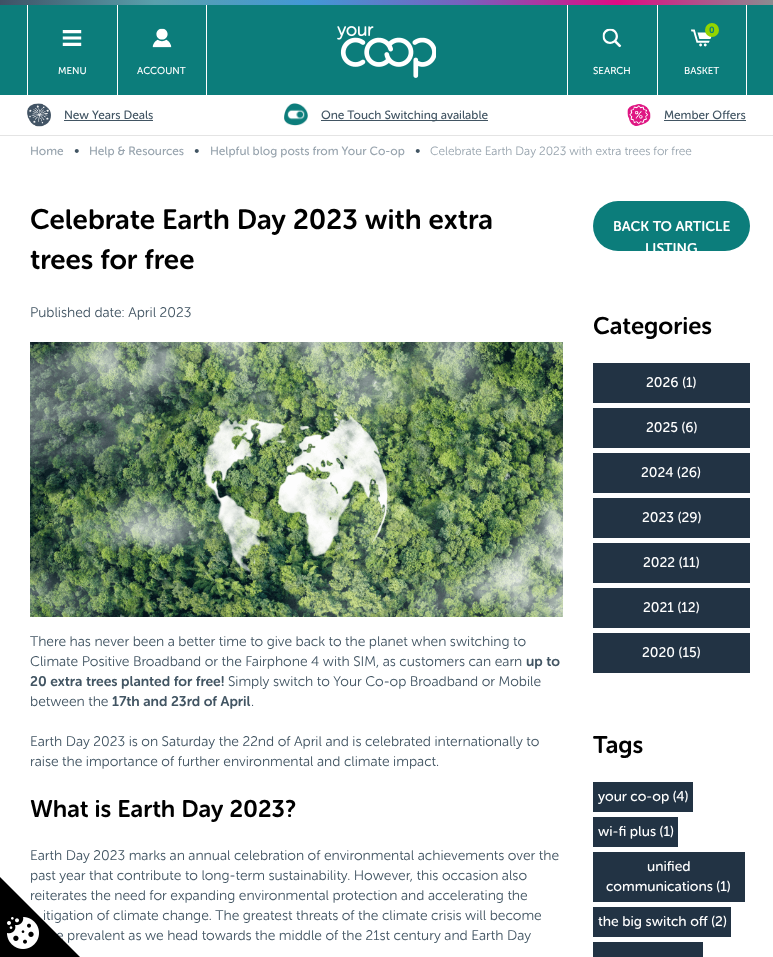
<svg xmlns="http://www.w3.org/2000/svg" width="773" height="957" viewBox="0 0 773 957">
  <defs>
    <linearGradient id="g1" gradientUnits="userSpaceOnUse" x1="0" y1="2.5" x2="773" y2="2.5"><stop offset="0" stop-color="#3e5165"/><stop offset="0.2" stop-color="#5aa0ac"/><stop offset="0.4" stop-color="#4298d6"/><stop offset="0.6" stop-color="#7860be"/><stop offset="0.8" stop-color="#df0b83"/><stop offset="1" stop-color="#8c8c90"/></linearGradient>
  </defs>
  <rect width="100%" height="100%" fill="#fff"/>
  <path d="M0 5h773v90H0z" fill="#0c7d7b"/>
  <path d="M0 0h773v5H0z" fill="url(#g1)"/>
  <path d="M27 5h1v90H27z" fill="#fff"/>
  <image x="62" y="30" width="20" height="16" href="img/1.png"/>
  <path d="M206 5h1v90H206z" fill="#fff"/>
  <path d="M117 5h1v90H117z" fill="#fff"/>
  <image x="152" y="28" width="20" height="20" href="img/2.png"/>
  <image x="337" y="26" width="99" height="52" href="img/3.png"/>
  <path d="M567 5h1v90H567z" fill="#fff"/>
  <image x="602" y="28" width="20" height="20" href="img/4.png"/>
  <path d="M746 5h1v90H746z" fill="#fff"/>
  <path d="M657 5h1v90H657z" fill="#fff"/>
  <image x="691" y="29" width="21" height="18" href="img/5.png"/>
  <circle cx="712" cy="30" r="7" fill="#93d500"/>
  <path d="M0 135h773v1H0z" fill="#e4e4e4"/>
  <image x="27" y="103" width="24" height="24" href="img/6.png"/>
  <path d="M64 120h89v1H64z" fill="#425563"/>
  <image x="284" y="103" width="24" height="23" href="img/7.png"/>
  <path d="M321 120h167v1H321z" fill="#425563"/>
  <image x="627" y="104" width="24" height="22" href="img/8.png"/>
  <path d="M664 120h82v1H664z" fill="#425563"/>
  <image x="30" y="342" width="533" height="275" href="img/9.png"/>
  <rect x="593" y="201" width="157" height="50" rx="25" fill="#0c7d7b"/>
  <path d="M593 363h157v40H593z" fill="#234"/>
  <path d="M593 408h157v40H593z" fill="#234"/>
  <path d="M593 453h157v40H593z" fill="#234"/>
  <path d="M593 498h157v40H593z" fill="#234"/>
  <path d="M593 543h157v40H593z" fill="#234"/>
  <path d="M593 588h157v40H593z" fill="#234"/>
  <path d="M593 633h157v40H593z" fill="#234"/>
  <path d="M593 782h100v30H593z" fill="#234"/>
  <path d="M593 817h85v30H593z" fill="#234"/>
  <path d="M593 852h152v50H593z" fill="#234"/>
  <path d="M593 907h138v30H593z" fill="#234"/>
  <path d="M593 942h110v15H593z" fill="#234"/>
  <g font-family="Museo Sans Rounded" font-size="10" fill="#fff">
    <text x="58" y="74">MENU</text>
    <text x="137" y="74">ACCOUNT</text>
    <text x="593" y="74">SEARCH</text>
  </g>
  <text x="709" y="33" font-family="Museo Sans Rounded" font-size="9" font-weight="600" fill="#0c7d7b">0</text>
  <text x="684" y="74" font-family="Museo Sans Rounded" font-size="10" fill="#fff">BASKET</text>
  <g font-family="Museo Sans Rounded" font-size="12" fill="#425563">
    <text x="64" y="119">New Years Deals</text>
    <text x="321" y="119">One Touch Switching available</text>
    <text x="664" y="119">Member Offers</text>
  </g>
  <text x="30" y="155" font-family="Museo Sans Rounded" font-size="12" fill="#98a4ae">Home</text>
  <text x="74" y="155" font-family="Museo Sans Rounded" font-size="14" font-weight="300" fill="#425563">•</text>
  <text x="89" y="155" font-family="Museo Sans Rounded" font-size="12" fill="#98a4ae">Help &amp; Resources</text>
  <text x="194" y="155" font-family="Museo Sans Rounded" font-size="14" font-weight="300" fill="#425563">•</text>
  <text x="210" y="155" font-family="Museo Sans Rounded" font-size="12" fill="#98a4ae">Helpful blog posts from Your Co-op</text>
  <text x="415" y="155" font-family="Museo Sans Rounded" font-size="14" font-weight="300" fill="#425563">•</text>
  <text x="430" y="155" font-family="Museo Sans Rounded" font-size="12" font-weight="300" fill="#98a4ae">Celebrate Earth Day 2023 with extra trees for free</text>
  <g font-family="Museo Sans Rounded" font-size="28" font-weight="600" fill="#000">
    <text x="30" y="229">Celebrate Earth Day 2023 with extra</text>
    <text x="30" y="269">trees for free</text>
  </g>
  <g font-family="Museo Sans Rounded" font-size="14" font-weight="300" fill="#425563">
    <text x="30" y="317">Published date: April 2023</text>
    <text x="30" y="646">There has never been a better time to give back to the planet when switching to</text>
    <text x="30" y="666">Climate Positive Broadband or the Fairphone 4 with SIM, as customers can earn</text>
  </g>
  <g font-family="Museo Sans Rounded" font-size="14" font-weight="600" fill="#425563">
    <text x="526" y="666">up to</text>
    <text x="30" y="686">20 extra trees planted for free!</text>
  </g>
  <g font-family="Museo Sans Rounded" font-size="14" font-weight="300" fill="#425563">
    <text x="228" y="686">Simply switch to Your Co-op Broadband or Mobile</text>
    <text x="30" y="706">between the</text>
  </g>
  <text x="112" y="706" font-family="Museo Sans Rounded" font-size="14" font-weight="600" fill="#425563">17th and 23rd of April</text>
  <g font-family="Museo Sans Rounded" font-size="14" font-weight="300" fill="#425563">
    <text x="251" y="706">.</text>
    <text x="30" y="746">Earth Day 2023 is on Saturday the 22nd of April and is celebrated internationally to</text>
    <text x="30" y="766">raise the importance of further environmental and climate impact.</text>
  </g>
  <text x="30" y="817" font-family="Museo Sans Rounded" font-size="24" font-weight="600" fill="#000">What is Earth Day 2023?</text>
  <g font-family="Museo Sans Rounded" font-size="14" font-weight="300" fill="#425563">
    <text x="30" y="860">Earth Day 2023 marks an annual celebration of environmental achievements over the</text>
    <text x="30" y="880">past year that contribute to long-term sustainability. However, this occasion also</text>
    <text x="30" y="900">reiterates the need for expanding environmental protection and accelerating the</text>
    <text x="43" y="920">itigation of climate change. The greatest threats of the climate crisis will become</text>
    <text x="56" y="940">e prevalent as we head towards the middle of the 21st century and Earth Day</text>
  </g>
  <g font-family="Museo Sans Rounded" font-size="14" font-weight="600" fill="#fff">
    <text x="613" y="231">BACK TO ARTICLE</text>
    <text x="645" y="253">LISTING</text>
  </g>
  <text x="593" y="334" font-family="Museo Sans Rounded" font-size="24" font-weight="600" fill="#000">Categories</text>
  <g font-family="Museo Sans Rounded" font-size="14" fill="#fff">
    <text x="646" y="387">2026 (1)</text>
    <text x="646" y="432">2025 (6)</text>
    <text x="641" y="477">2024 (26)</text>
    <text x="642" y="522">2023 (29)</text>
    <text x="643" y="567">2022 (11)</text>
    <text x="643" y="612">2021 (12)</text>
    <text x="642" y="657">2020 (15)</text>
  </g>
  <text x="593" y="753" font-family="Museo Sans Rounded" font-size="24" font-weight="600" fill="#000">Tags</text>
  <g font-family="Museo Sans Rounded" font-size="14" fill="#fff">
    <text x="598" y="801">your co-op (4)</text>
    <text x="598" y="836">wi-fi plus (1)</text>
    <text x="647" y="871">unified</text>
    <text x="606" y="891">communications (1)</text>
    <text x="598" y="926">the big switch off (2)</text>
  </g>
  <path d="M0 957V877L80 957Z" fill="#000"/>
  <image x="7" y="917" width="32" height="32" href="img/10.png"/>
</svg>
